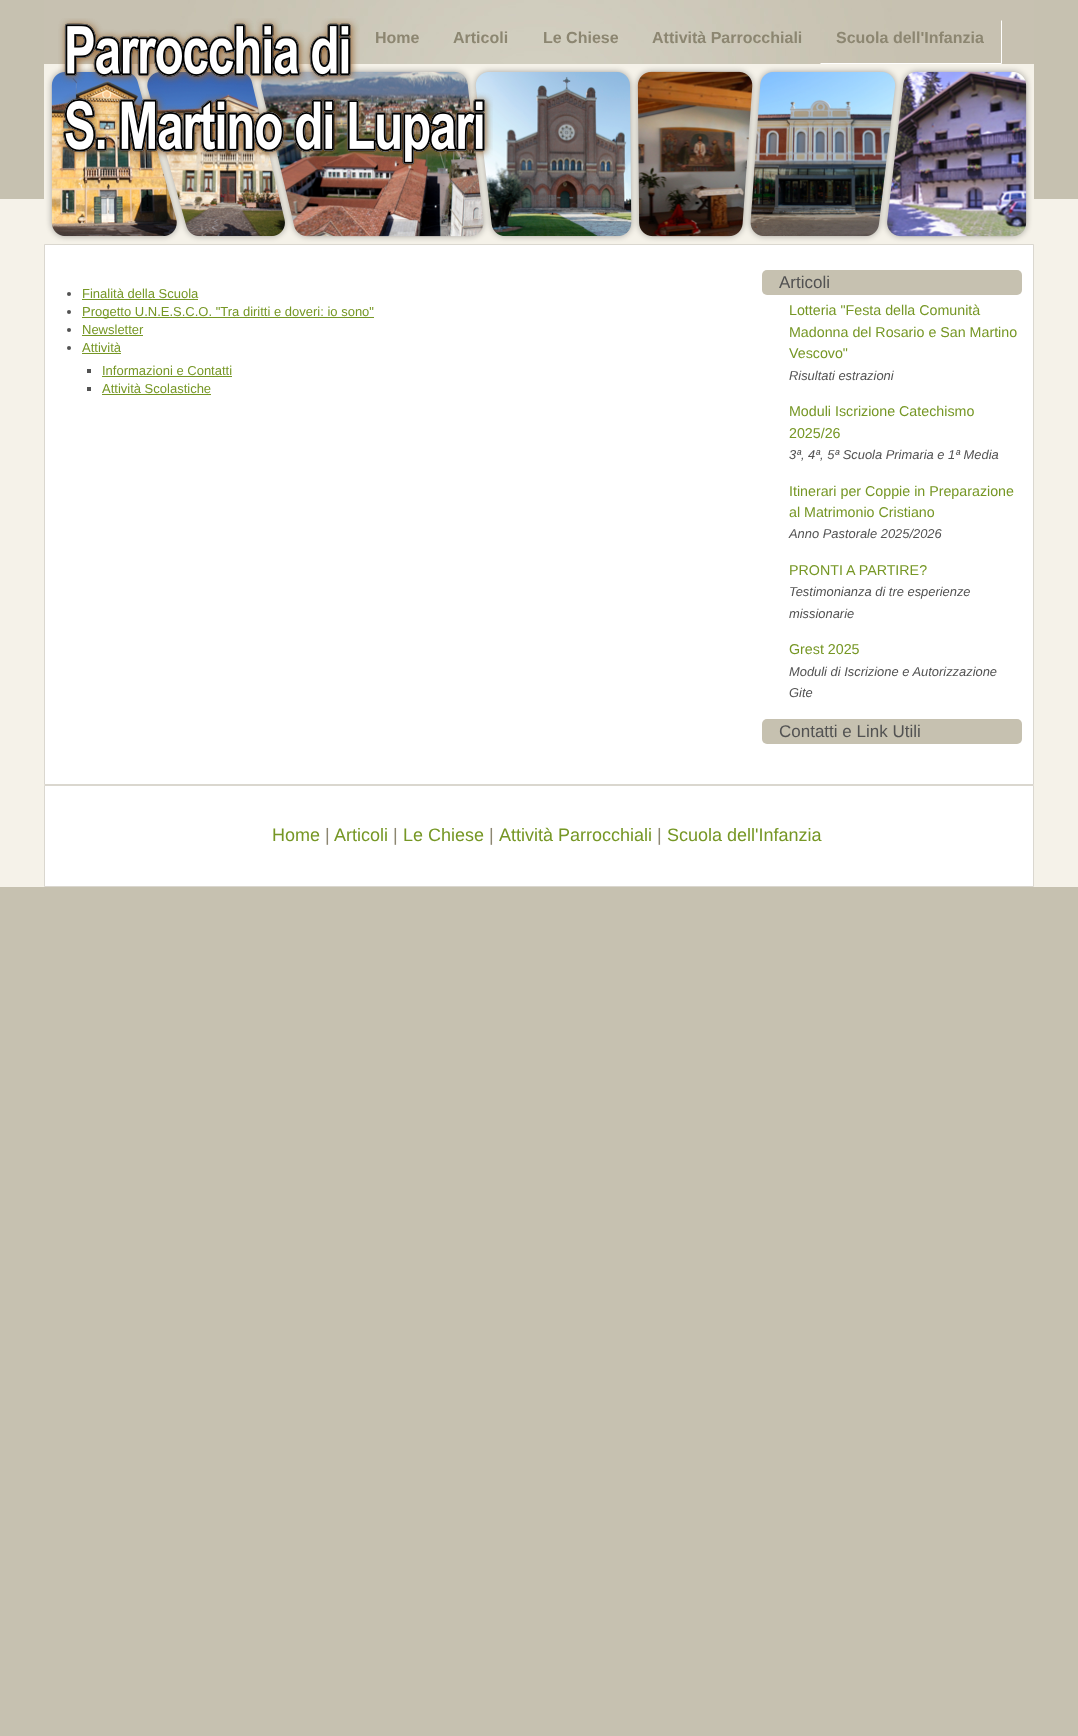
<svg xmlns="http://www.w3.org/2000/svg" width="1078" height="1736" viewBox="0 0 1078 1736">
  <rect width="100%" height="100%" fill="#c6c1b0"/>
  <image x="44" y="0" width="990" height="64" href="img/1.png"/>
  <path d="M0 199h1078v688H0z" fill="#f5f2e9"/>
  <image x="44" y="64" width="990" height="180" href="img/3.png"/>
  <image x="58" y="18" width="435" height="153" href="img/2.png"/>
  <path d="M1002 20V64L1001 63V21Z" fill="#fff"/>
  <path d="M1002 64H820L821 63H1001Z" fill="#fff"/>
  <path d="M44.5 244.5h989v540H44.5z" fill="#fff" stroke="#dad7cf"/>
  <circle cx="69" cy="294" r="2" fill="#525252"/>
  <path d="M82 299h116v1H82z" fill="#769725"/>
  <circle cx="69" cy="312" r="2" fill="#525252"/>
  <path d="M82 317h292v1H82z" fill="#769725"/>
  <circle cx="69" cy="330" r="2" fill="#525252"/>
  <path d="M82 335h61v1H82z" fill="#769725"/>
  <circle cx="69" cy="348" r="2" fill="#525252"/>
  <path d="M82 353h39v1H82z" fill="#769725"/>
  <path d="M87 369h4v4H87z" fill="#525252"/>
  <path d="M102 376h130v1H102z" fill="#769725"/>
  <path d="M87 387h4v4H87z" fill="#525252"/>
  <path d="M102 394h109v1H102z" fill="#769725"/>
  <rect x="762" y="270" width="260" height="25" rx="5" fill="#c6c1b0"/>
  <rect x="762" y="719" width="260" height="25" rx="5" fill="#c6c1b0"/>
  <path d="M44.5 785.5h989v101H44.5z" fill="#fff" stroke="#dad7cf"/>
  <g font-family="Liberation Sans" font-size="16" font-weight="bold" fill="#8c8671">
    <text x="375" y="43">Home</text>
    <text x="453" y="43">Articoli</text>
    <text x="543" y="43">Le Chiese</text>
    <text x="652" y="43">Attività Parrocchiali</text>
    <text x="836" y="43">Scuola dell'Infanzia</text>
  </g>
  <g font-family="Liberation Sans" font-size="13" fill="#769725">
    <text x="82" y="298">Finalità della Scuola</text>
    <text x="82" y="316">Progetto U.N.E.S.C.O. "Tra diritti e doveri: io sono"</text>
    <text x="82" y="334">Newsletter</text>
    <text x="82" y="352">Attività</text>
    <text x="102" y="375">Informazioni e Contatti</text>
    <text x="102" y="393">Attività Scolastiche</text>
  </g>
  <text x="779" y="288" font-family="Liberation Sans" font-size="17" fill="#525252">Articoli</text>
  <g font-family="Liberation Sans" font-size="14.25" fill="#769725">
    <text x="789" y="315">Lotteria "Festa della Comunità</text>
    <text x="789" y="337">Madonna del Rosario e San Martino</text>
    <text x="789" y="358">Vescovo"</text>
  </g>
  <text x="789" y="380" font-family="Liberation Sans" font-size="12.9" font-style="italic" fill="#525252">Risultati estrazioni</text>
  <g font-family="Liberation Sans" font-size="14.25" fill="#769725">
    <text x="789" y="416">Moduli Iscrizione Catechismo</text>
    <text x="789" y="438">2025/26</text>
  </g>
  <text x="789" y="459" font-family="Liberation Sans" font-size="12.9" font-style="italic" fill="#525252">3ª, 4ª, 5ª Scuola Primaria e 1ª Media</text>
  <g font-family="Liberation Sans" font-size="14.25" fill="#769725">
    <text x="789" y="496">Itinerari per Coppie in Preparazione</text>
    <text x="789" y="517">al Matrimonio Cristiano</text>
  </g>
  <text x="789" y="538" font-family="Liberation Sans" font-size="12.9" font-style="italic" fill="#525252">Anno Pastorale 2025/2026</text>
  <text x="789" y="575" font-family="Liberation Sans" font-size="14.25" fill="#769725">PRONTI A PARTIRE?</text>
  <g font-family="Liberation Sans" font-size="12.9" font-style="italic" fill="#525252">
    <text x="789" y="596">Testimonianza di tre esperienze</text>
    <text x="789" y="618">missionarie</text>
  </g>
  <text x="789" y="654" font-family="Liberation Sans" font-size="14.25" fill="#769725">Grest 2025</text>
  <g font-family="Liberation Sans" font-size="12.9" font-style="italic" fill="#525252">
    <text x="789" y="676">Moduli di Iscrizione e Autorizzazione</text>
    <text x="789" y="697">Gite</text>
  </g>
  <text x="779" y="737" font-family="Liberation Sans" font-size="17" fill="#525252">Contatti e Link Utili</text>
  <text x="272" y="841" font-family="Liberation Sans" font-size="18" fill="#769725">Home</text>
  <text x="325" y="841" font-family="Liberation Sans" font-size="18" fill="#8c8671">|</text>
  <text x="334" y="841" font-family="Liberation Sans" font-size="18" fill="#769725">Articoli</text>
  <text x="393" y="841" font-family="Liberation Sans" font-size="18" fill="#8c8671">|</text>
  <text x="403" y="841" font-family="Liberation Sans" font-size="18" fill="#769725">Le Chiese</text>
  <text x="489" y="841" font-family="Liberation Sans" font-size="18" fill="#8c8671">|</text>
  <text x="499" y="841" font-family="Liberation Sans" font-size="18" fill="#769725">Attività Parrocchiali</text>
  <text x="657" y="841" font-family="Liberation Sans" font-size="18" fill="#8c8671">|</text>
  <text x="667" y="841" font-family="Liberation Sans" font-size="18" fill="#769725">Scuola dell'Infanzia</text>
</svg>
